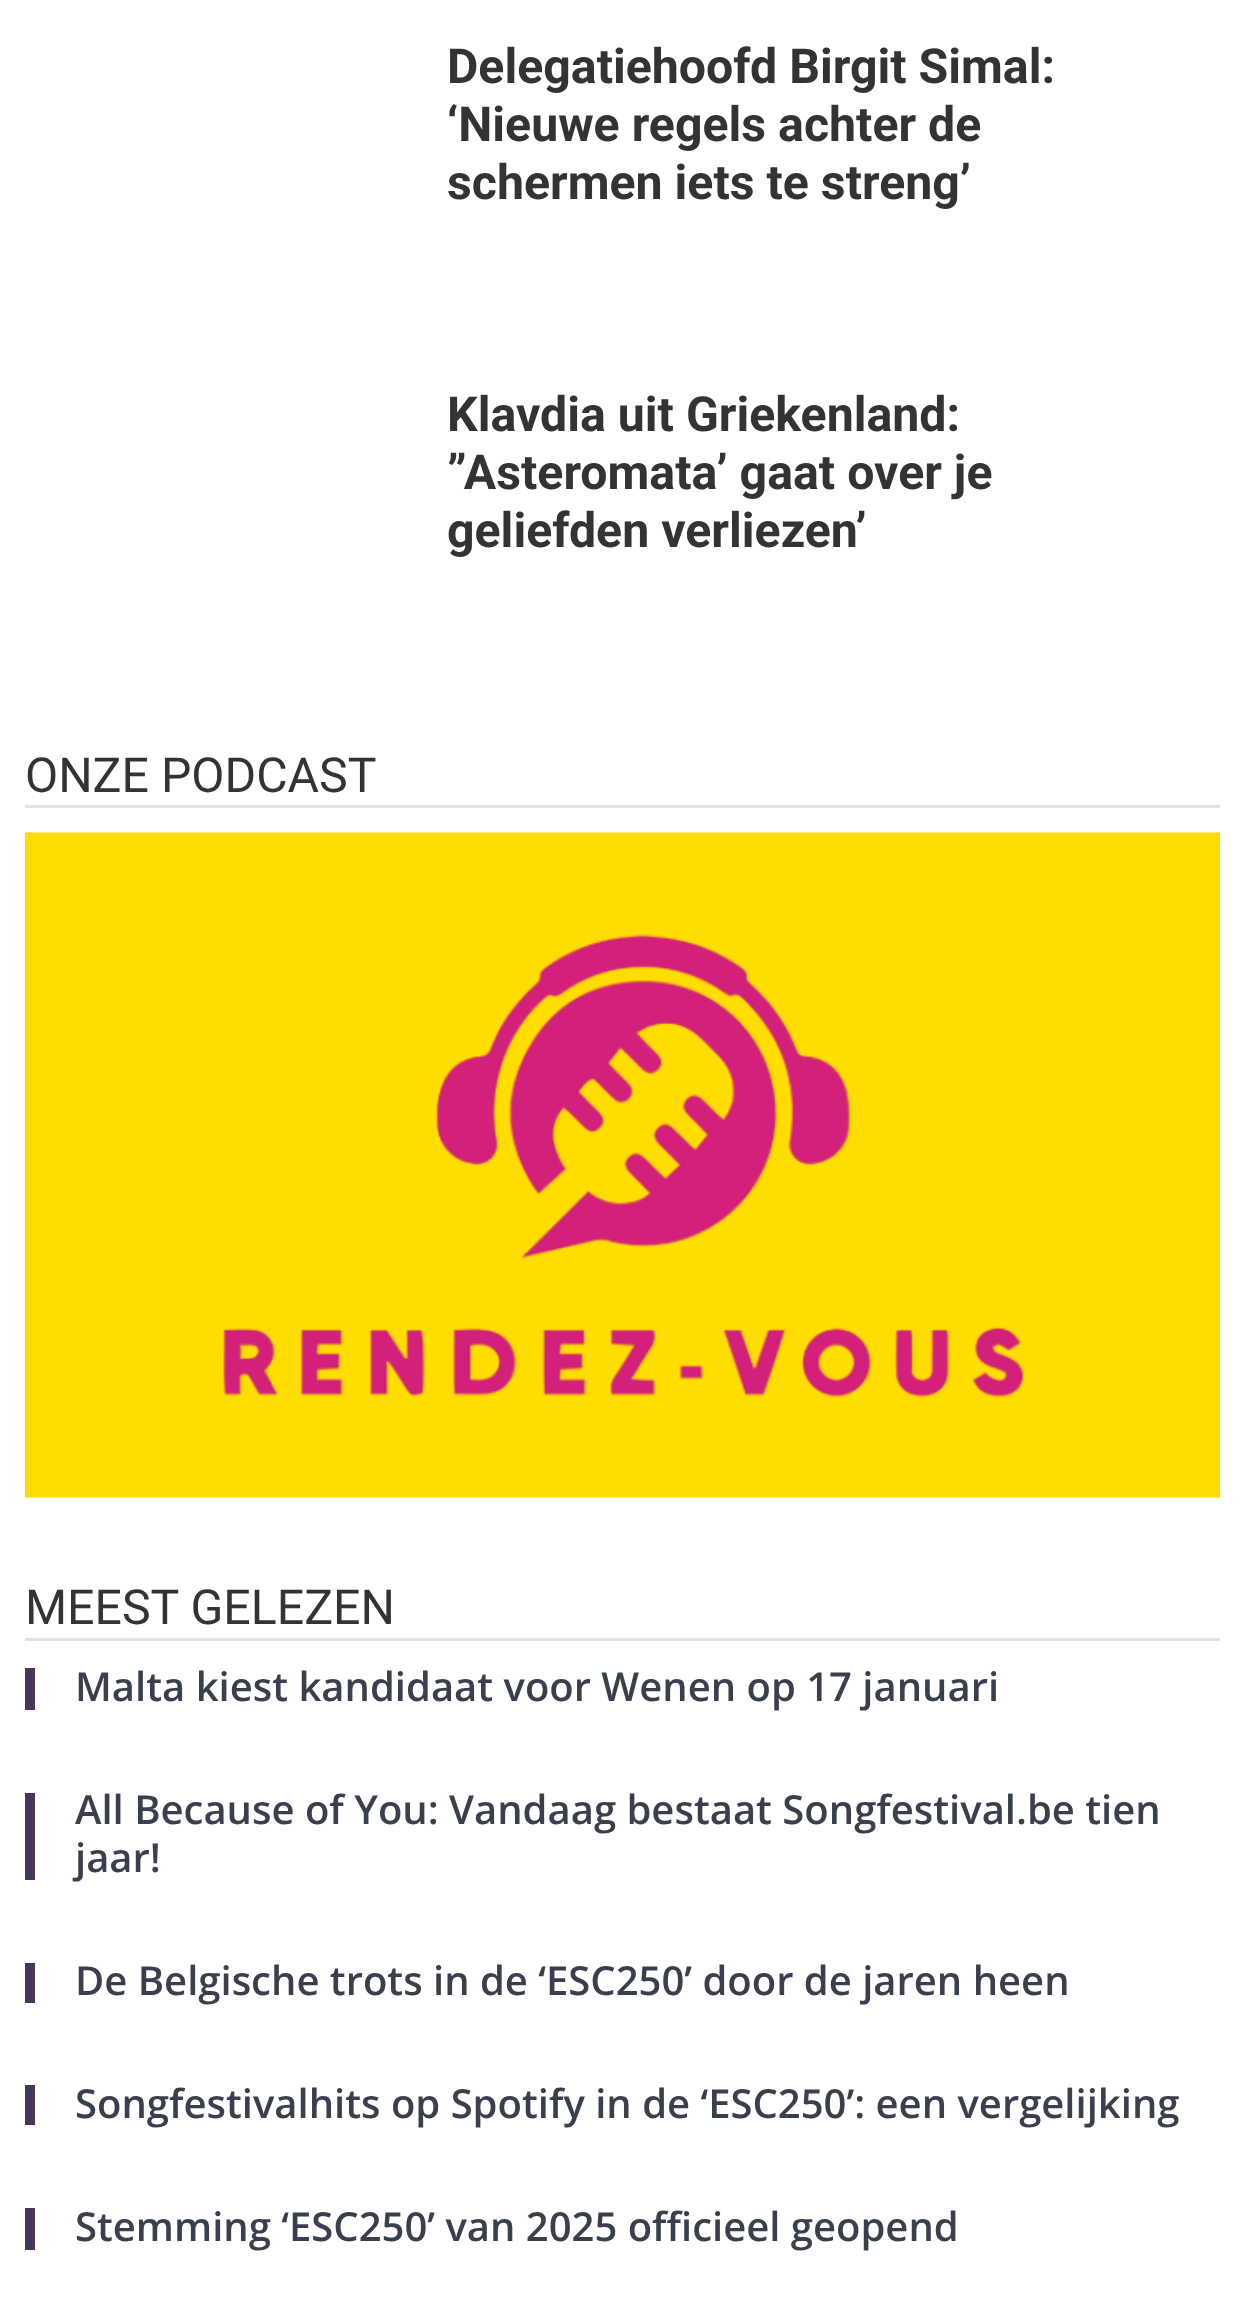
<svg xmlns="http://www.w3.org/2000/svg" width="1244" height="2305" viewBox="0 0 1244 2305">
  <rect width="100%" height="100%" fill="#fff"/>
  <path d="M25 805h1195v3H25z" fill="#e1e1e1"/>
  <image x="25" y="832" width="1195" height="666" href="img/1.png"/>
  <path d="M25 1638h1195v3H25z" fill="#e1e1e1"/>
  <path d="M25 1668h10v42H25z" fill="#49345b"/>
  <path d="M25 1793h10v87H25z" fill="#49345b"/>
  <path d="M25 1963h10v40H25z" fill="#49345b"/>
  <path d="M25 2085h10v40H25z" fill="#49345b"/>
  <path d="M25 2208h10v42H25z" fill="#49345b"/>
  <g font-family="Roboto" font-size="48.25" font-weight="bold" fill="#333">
    <text x="447" y="83">Delegatiehoofd Birgit Simal:</text>
    <text x="447" y="141">‘Nieuwe regels achter de</text>
    <text x="447" y="199">schermen iets te streng’</text>
    <text x="447" y="431">Klavdia uit Griekenland:</text>
    <text x="447" y="489">”Asteromata’ gaat over je</text>
    <text x="447" y="547">geliefden verliezen’</text>
  </g>
  <g font-family="Roboto" font-size="48.25" fill="#333">
    <text x="25" y="792">ONZE PODCAST</text>
    <text x="25" y="1624">MEEST GELEZEN</text>
  </g>
  <g font-family="Open Sans" font-size="40" font-weight="600" fill="#393f4c">
    <text x="75" y="1701">Malta kiest kandidaat voor Wenen op 17 januari</text>
    <text x="75" y="1824">All Because of You: Vandaag bestaat Songfestival.be tien</text>
    <text x="75" y="1872">jaar!</text>
    <text x="75" y="1995">De Belgische trots in de ‘ESC250’ door de jaren heen</text>
    <text x="75" y="2118">Songfestivalhits op Spotify in de ‘ESC250’: een vergelijking</text>
    <text x="75" y="2241">Stemming ‘ESC250’ van 2025 officieel geopend</text>
  </g>
</svg>
